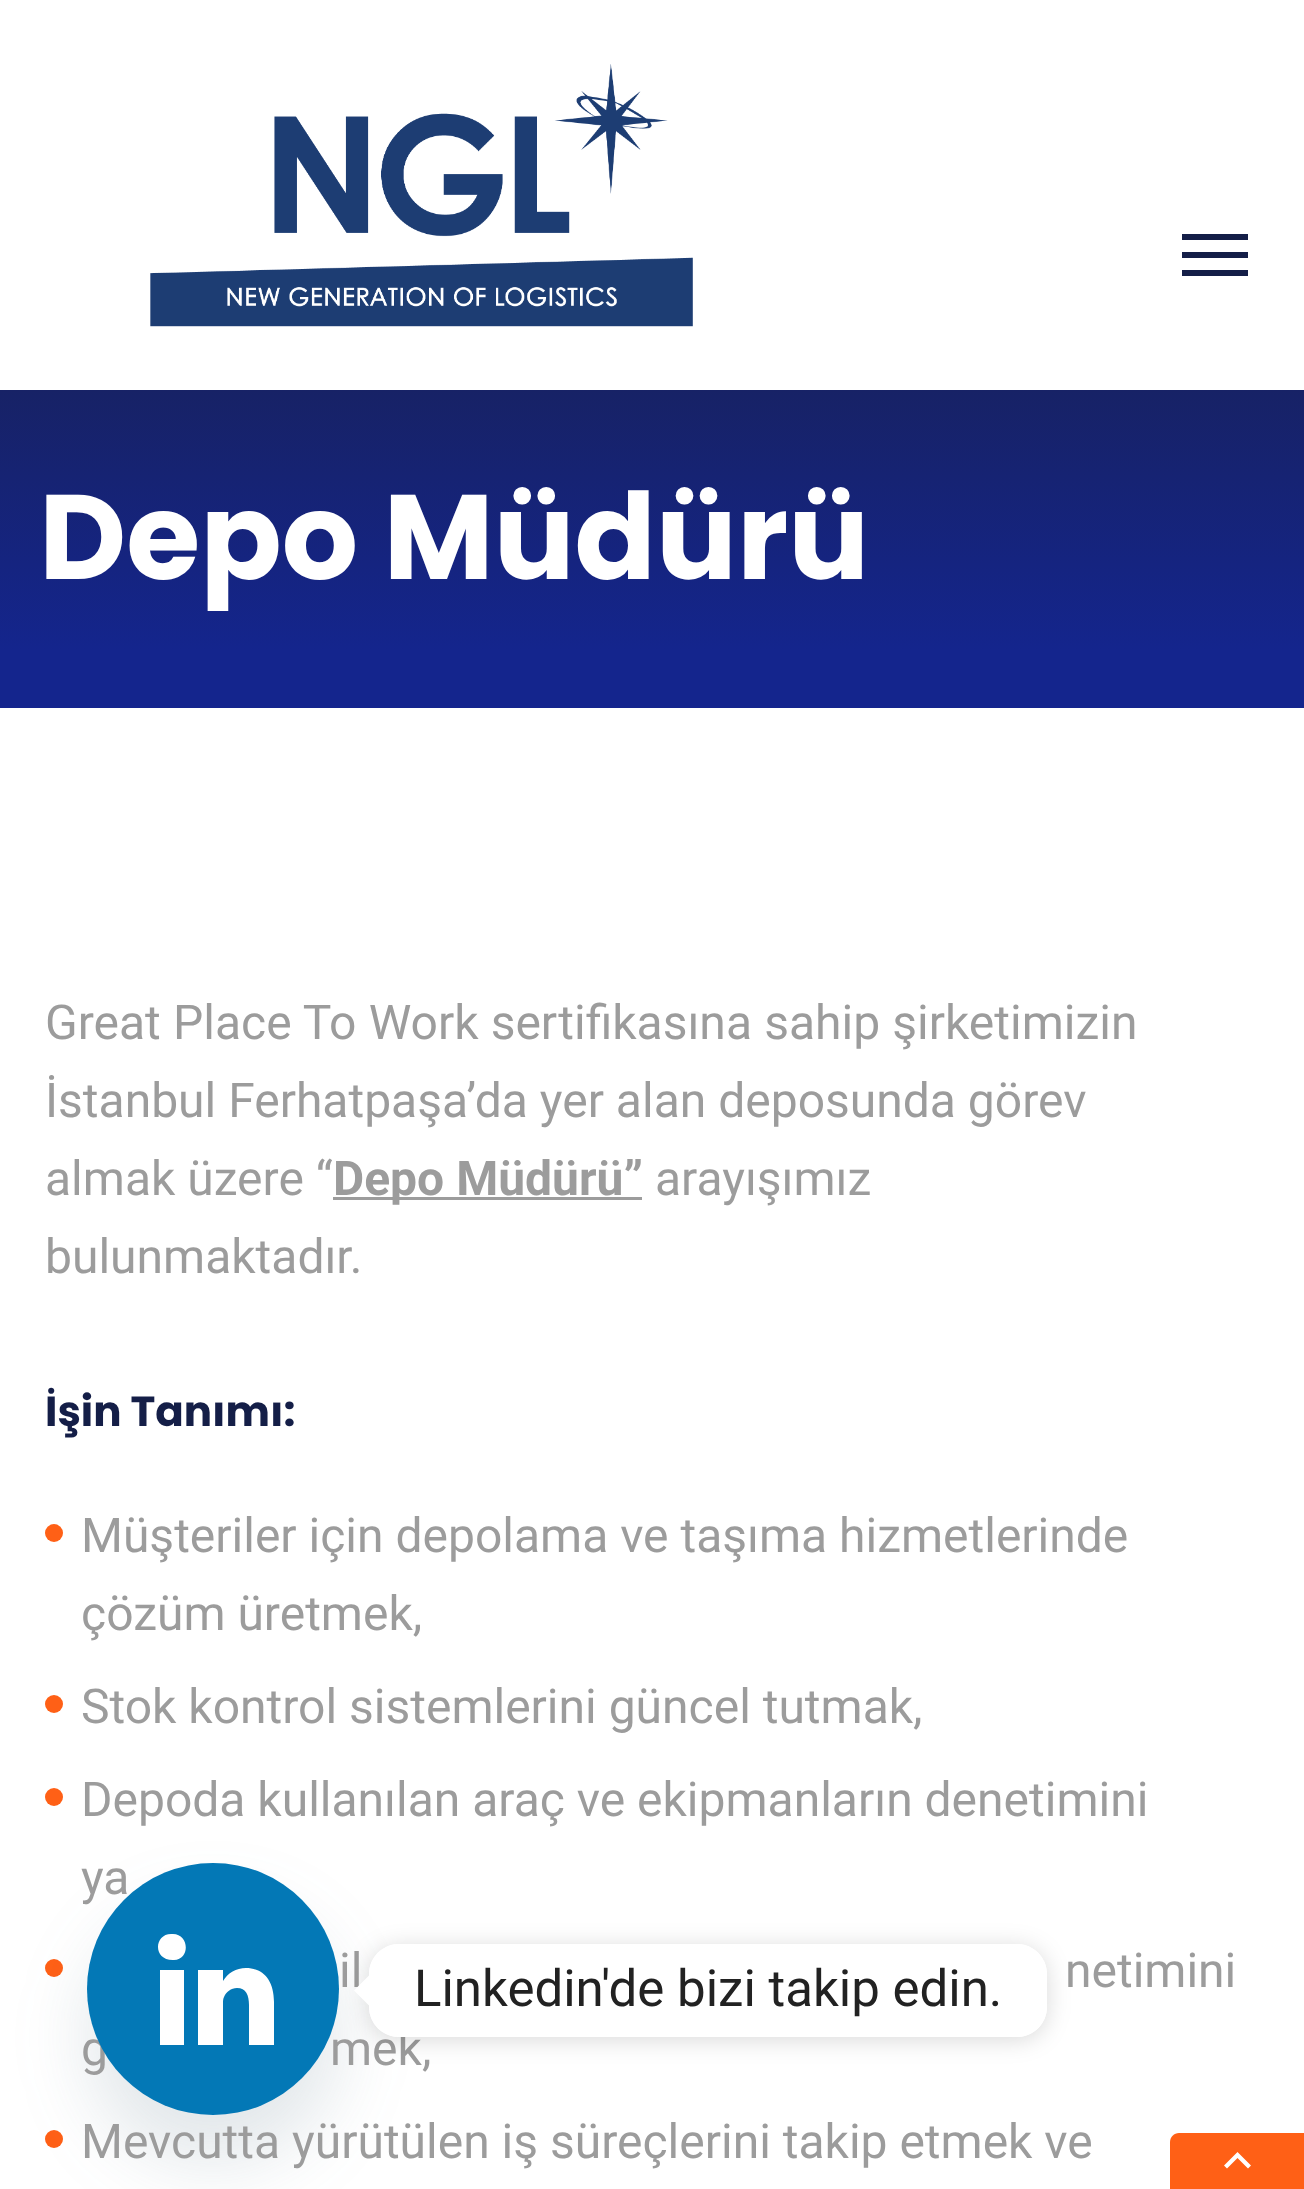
<svg xmlns="http://www.w3.org/2000/svg" width="1304" height="2189" viewBox="0 0 1304 2189">
  <defs>
    <linearGradient id="g1" gradientUnits="userSpaceOnUse" x1="653" y1="390" x2="653" y2="708"><stop offset="0" stop-color="#172266"/><stop offset="0.82" stop-color="#14258d"/></linearGradient>
    <clipPath id="clip1"><path d="M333 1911H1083V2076H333ZM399 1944H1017C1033.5 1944 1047 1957.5 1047 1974V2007C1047 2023.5 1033.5 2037 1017 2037H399C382.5 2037 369 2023.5 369 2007V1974C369 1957.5 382.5 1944 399 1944Z" clip-rule="evenodd"/></clipPath>
  </defs>
  <rect width="100%" height="100%" fill="#fff"/>
  <image x="150" y="64" width="543" height="263" href="img/1.png"/>
  <path d="M1182 234h66v6H1182z" fill="#141e47"/>
  <path d="M1182 252h66v6H1182z" fill="#141e47"/>
  <path d="M1182 270h66v6H1182z" fill="#141e47"/>
  <path d="M0 390h1304v318H0z" fill="url(#g1)"/>
  <path d="M333 1197h309v3H333z" fill="#9c9c9c"/>
  <circle cx="54" cy="1533" r="9" fill="#ff6016"/>
  <circle cx="54" cy="1704" r="9" fill="#ff6016"/>
  <circle cx="54" cy="1797" r="9" fill="#ff6016"/>
  <circle cx="54" cy="1968" r="9" fill="#ff6016"/>
  <circle cx="54" cy="2139" r="9" fill="#ff6016"/>
  <path d="M1179 2133H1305V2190H1170V2142C1170 2137 1174 2133 1179 2133Z" fill="#ff6016"/>
  <path d="M1237.5 2152L1251 2165.5L1248 2168.5L1237.5 2158L1227 2168.5L1224 2165.5Z" fill="#fff"/>
  <rect x="87" y="1911" width="252" height="252" rx="126" fill="#4b6a7f29" filter="blur(36px)"/>
  <text x="39" y="579" font-family="Poppins" font-size="120" font-weight="bold" fill="#fff">Depo Müdürü</text>
  <g font-family="Roboto" font-size="48" fill="#9c9c9c">
    <text x="45" y="1039" word-spacing="0.25">Great Place To Work sertifikasına sahip şirketimizin</text>
    <text x="45" y="1117">İstanbul Ferhatpaşa’da yer alan deposunda görev</text>
    <text x="45" y="1195">almak üzere “</text>
  </g>
  <text x="333" y="1195" font-family="Roboto" font-size="48" font-weight="bold" fill="#9c9c9c">Depo Müdürü”</text>
  <g font-family="Roboto" font-size="48" fill="#9c9c9c">
    <text x="655" y="1195">arayışımız</text>
    <text x="45" y="1273">bulunmaktadır.</text>
  </g>
  <text x="45" y="1426" font-family="Poppins" font-size="42" font-weight="bold" fill="#141e47">İşin Tanımı:</text>
  <g font-family="Roboto" font-size="48" fill="#9c9c9c">
    <text x="81" y="1552">Müşteriler için depolama ve taşıma hizmetlerinde</text>
    <text x="81" y="1630">çözüm üretmek,</text>
    <text x="81" y="1723">Stok kontrol sistemlerini güncel tutmak,</text>
    <text x="81" y="1816">Depoda kullanılan araç ve ekipmanların denetimini</text>
    <text x="81" y="1894">ya</text>
    <text x="339" y="1987">il</text>
    <text x="1065" y="1987">netimini</text>
    <text x="81" y="2065">g</text>
    <text x="330" y="2065">mek,</text>
    <text x="81" y="2158">Mevcutta yürütülen iş süreçlerini takip etmek ve</text>
  </g>
  <circle cx="213" cy="1989" r="126" fill="#0378b6"/>
  <path d="M274 2002V2045H249V2005C249 1995 246 1988 237 1988C231 1988 226 1992 224 1997C223 1999 223 2001 223 2003V2045H198V1970H223V1981C228 1973 236 1968 246 1968C262 1968 274 1979 274 2002ZM172 1934C154 1933 152 1961 174 1960C191 1959 189 1933 172 1934ZM160 2045H184V1970H160Z" fill="#fff"/>
  <g clip-path="url(#clip1)">
    <rect x="369" y="1947" width="678" height="93" rx="30" fill="#03030326" filter="blur(11.5px)"/>
  </g>
  <rect x="369" y="1944" width="678" height="93" rx="30" fill="#fff"/>
  <path d="M369 1975.5V2005.5L354 1990.5Z" fill="#fff"/>
  <text x="414" y="2006" font-family="Roboto" font-size="51" fill="#222">Linkedin'de bizi takip edin.</text>
</svg>
